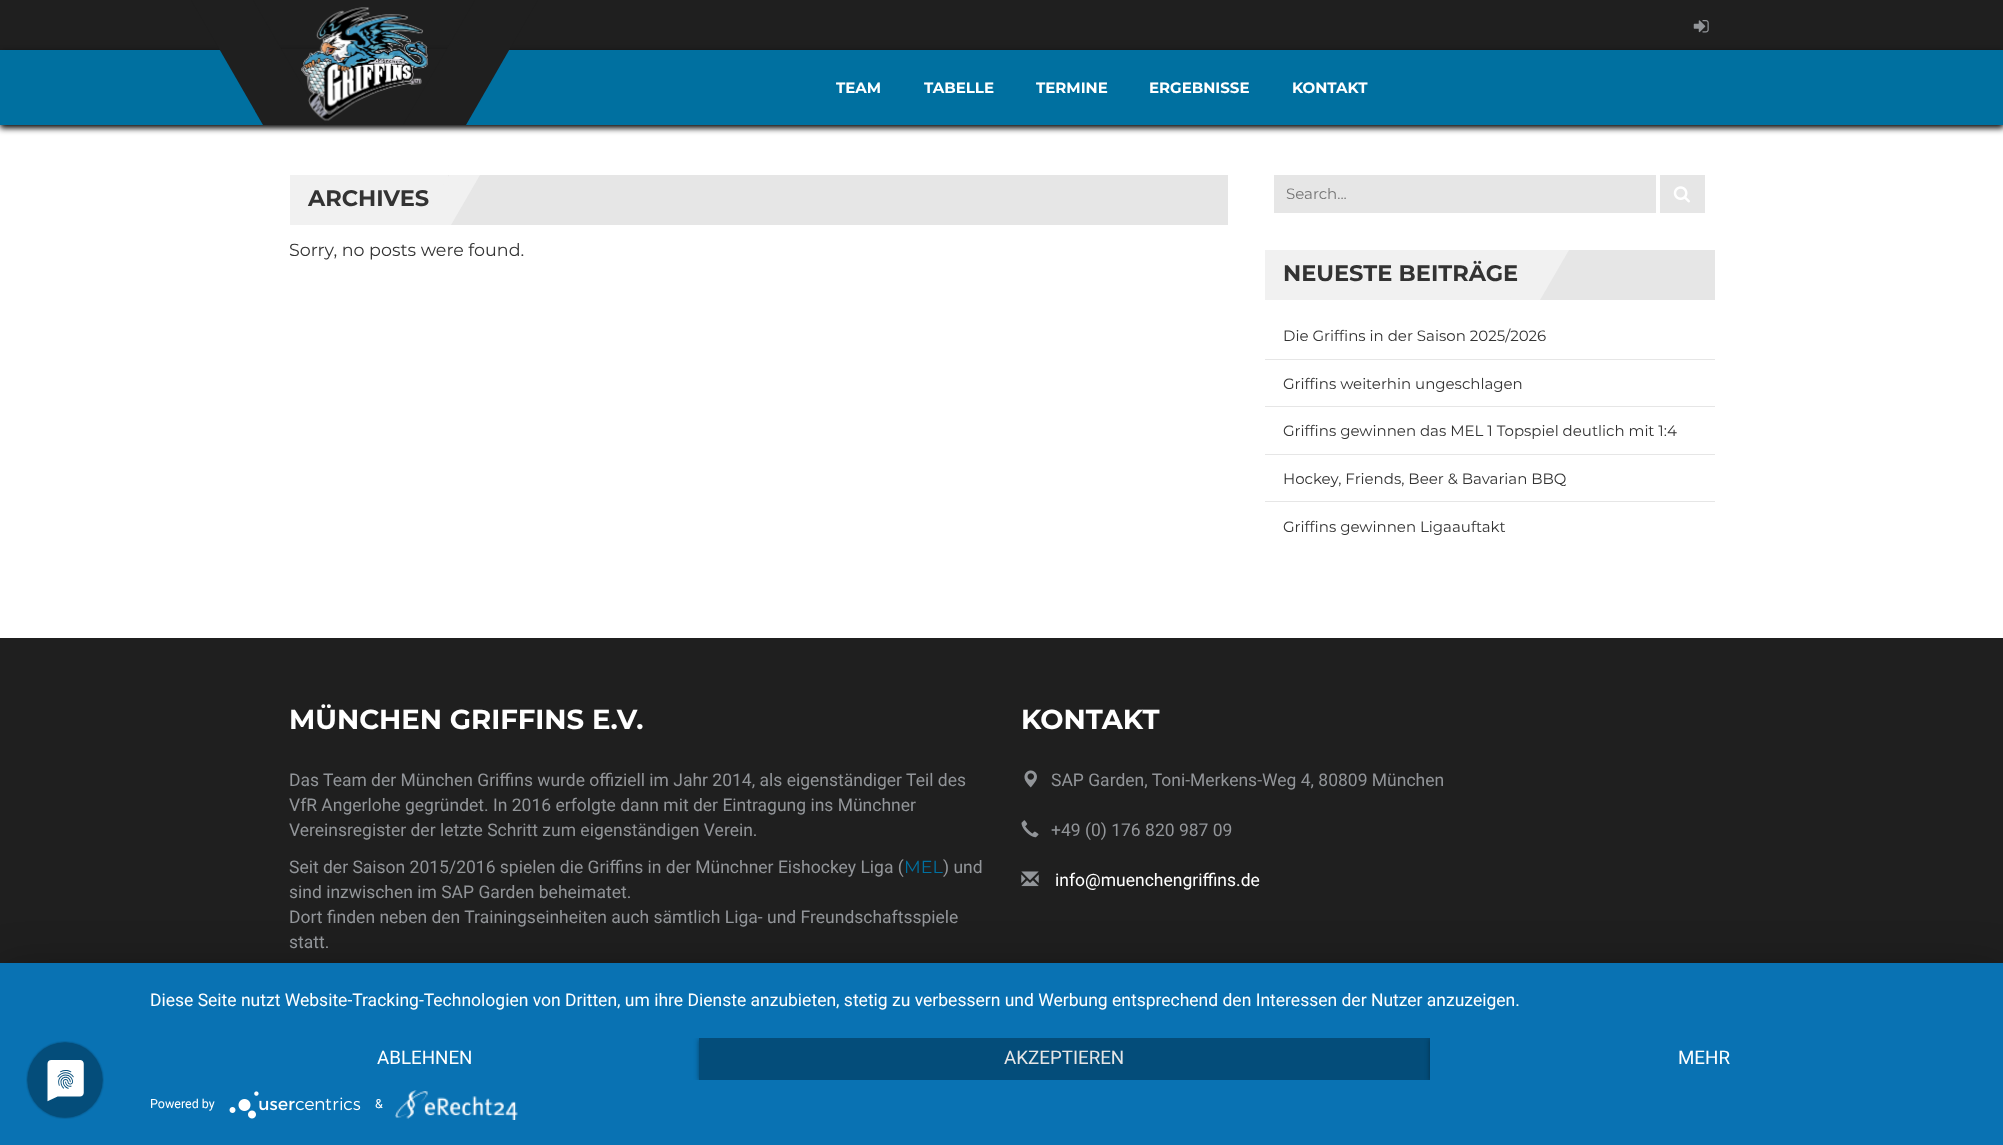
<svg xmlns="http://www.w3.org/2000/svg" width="2003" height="1145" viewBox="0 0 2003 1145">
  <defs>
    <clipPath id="clip1"><path d="M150 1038h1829v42H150z"/></clipPath>
  </defs>
  <rect width="100%" height="100%" fill="#fff"/>
  <path d="M0 0h2003v50H0z" fill="#1f1f1f"/>
  <path d="M0 53h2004v75H0z" fill="#000" filter="blur(3px)"/>
  <path d="M0 50h2003v75H0z" fill="#0070a0"/>
  <path d="M271 49h188v76H271z" fill="#1f1f1f"/>
  <path d="M191 0H253L325 125H263Z" fill="#1f1f1f"/>
  <path d="M475 0H538L466 125H403Z" fill="#1f1f1f"/>
  <image x="301" y="7" width="127" height="114" href="img/1.png"/>
  <image x="1693" y="20" width="16" height="13" href="img/2.png"/>
  <path d="M448 175h780v50H448z" fill="#e6e6e6"/>
  <path d="M290 175h158v50H290z" fill="#f1f1f1"/>
  <path d="M1274 175h382v38H1274z" fill="#e6e6e6"/>
  <path d="M1660 175h45v38H1660z" fill="#e6e6e6"/>
  <image x="1673" y="186" width="17" height="17" href="img/3.png"/>
  <path d="M1540 250h175v50H1540z" fill="#e6e6e6"/>
  <path d="M1265 250h273v50H1265z" fill="#f1f1f1"/>
  <path d="M1265 359h450v1H1265z" fill="#e6e6e6"/>
  <path d="M1265 406h450v1H1265z" fill="#e6e6e6"/>
  <path d="M1265 454h450v1H1265z" fill="#e6e6e6"/>
  <path d="M1265 501h450v1H1265z" fill="#e6e6e6"/>
  <path d="M0 638h2003v325H0z" fill="#1f1f1f"/>
  <image x="1024" y="770" width="13" height="18" href="img/4.png"/>
  <image x="1021" y="820" width="18" height="18" href="img/5.png"/>
  <image x="1021" y="871" width="18" height="16" href="img/6.png"/>
  <path d="M0 970h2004v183H0z" fill="#0000004d" filter="blur(22.5px)"/>
  <path d="M0 963h2003v182H0z" fill="#0972b3"/>
  <image x="26" y="1041" width="78" height="78" href="img/7.png"/>
  <g clip-path="url(#clip1)">
    <path d="M699 1039h731v42H699z" fill="#00000066" filter="blur(2.5px)"/>
  </g>
  <path d="M699 1038h731v42H699z" fill="#044d7a"/>
  <g clip-path="url(#clip1)">
    <path d="M1430 1039h549v42H1430z" fill="#00000066" filter="blur(2.5px)"/>
  </g>
  <path d="M1430 1038h549v42H1430z" fill="#0972b3"/>
  <image x="229" y="1091" width="132" height="28" href="img/8.png"/>
  <image x="395" y="1090" width="123" height="30" href="img/9.png"/>
  <g font-family="Montserrat" font-size="15" font-weight="bold" fill="#fff">
    <text x="836" y="93">TEAM</text>
    <text x="924" y="93">TABELLE</text>
    <text x="1036" y="93">TERMINE</text>
    <text x="1149" y="93">ERGEBNISSE</text>
    <text x="1292" y="93">KONTAKT</text>
  </g>
  <text x="308" y="206" font-family="Montserrat" font-size="22.5" font-weight="bold" fill="#333">ARCHIVES</text>
  <path d="M449 175H480L451 225H420Z" fill="#f1f1f1"/>
  <text x="289" y="256" font-family="Montserrat" font-size="17.5" fill="#333">Sorry, no posts were found.</text>
  <text x="1286" y="199" font-family="Montserrat" font-size="15" fill="#757575">Search...</text>
  <text x="1283" y="281" font-family="Montserrat" font-size="22.5" font-weight="bold" fill="#333">NEUESTE BEITRÄGE</text>
  <path d="M1538 250H1569L1540 300H1509Z" fill="#f1f1f1"/>
  <g font-family="Montserrat" font-size="15" fill="#333">
    <text x="1283" y="341">Die Griffins in der Saison 2025/2026</text>
    <text x="1283" y="389">Griffins weiterhin ungeschlagen</text>
    <text x="1283" y="436">Griffins gewinnen das MEL 1 Topspiel deutlich mit 1:4</text>
    <text x="1283" y="484">Hockey, Friends, Beer &amp; Bavarian BBQ</text>
    <text x="1283" y="532">Griffins gewinnen Ligaauftakt</text>
  </g>
  <text x="289" y="729" font-family="Montserrat" font-size="27.5" font-weight="bold" fill="#fff">MÜNCHEN GRIFFINS E.V.</text>
  <g font-family="Roboto" font-size="17.5" fill="#929599">
    <text x="289" y="786">Das Team der München Griffins wurde offiziell im Jahr 2014, als eigenständiger Teil des</text>
    <text x="289" y="811">VfR Angerlohe gegründet. In 2016 erfolgte dann mit der Eintragung ins Münchner</text>
    <text x="289" y="836">Vereinsregister der letzte Schritt zum eigenständigen Verein.</text>
    <text x="289" y="873">Seit der Saison 2015/2016 spielen die Griffins in der Münchner Eishockey Liga (</text>
  </g>
  <text x="904" y="873" font-family="Montserrat" font-size="17.5" fill="#0070a0">MEL</text>
  <g font-family="Roboto" font-size="17.5" fill="#929599">
    <text x="943" y="873">) und</text>
    <text x="289" y="898">sind inzwischen im SAP Garden beheimatet.</text>
    <text x="289" y="923">Dort finden neben den Trainingseinheiten auch sämtlich Liga- und Freundschaftsspiele</text>
    <text x="289" y="948">statt.</text>
  </g>
  <text x="1021" y="729" font-family="Montserrat" font-size="27.5" font-weight="bold" fill="#fff">KONTAKT</text>
  <g font-family="Roboto" font-size="17.5" fill="#929599">
    <text x="1051" y="786">SAP Garden, Toni-Merkens-Weg 4, 80809 München</text>
    <text x="1051" y="836">+49 (0) 176 820 987 09</text>
  </g>
  <g font-family="Roboto" font-size="17.5" fill="#fff">
    <text x="1055" y="886">info@muenchengriffins.de</text>
    <text x="150" y="1006">Diese Seite nutzt Website-Tracking-Technologien von Dritten, um ihre Dienste anzubieten, stetig zu verbessern und Werbung entsprechend den Interessen der Nutzer anzuzeigen.</text>
  </g>
  <text x="377" y="1064" font-family="Roboto" font-size="18.75" fill="#fff">ABLEHNEN</text>
  <text x="1004" y="1064" font-family="Roboto" font-size="18.75" fill="#e6e6e6">AKZEPTIEREN</text>
  <text x="1678" y="1064" font-family="Roboto" font-size="18.75" fill="#fff">MEHR</text>
  <g font-family="Roboto" font-size="12.5" fill="#fff">
    <text x="150" y="1108">Powered by</text>
    <text x="375" y="1108">&amp;</text>
  </g>
</svg>
